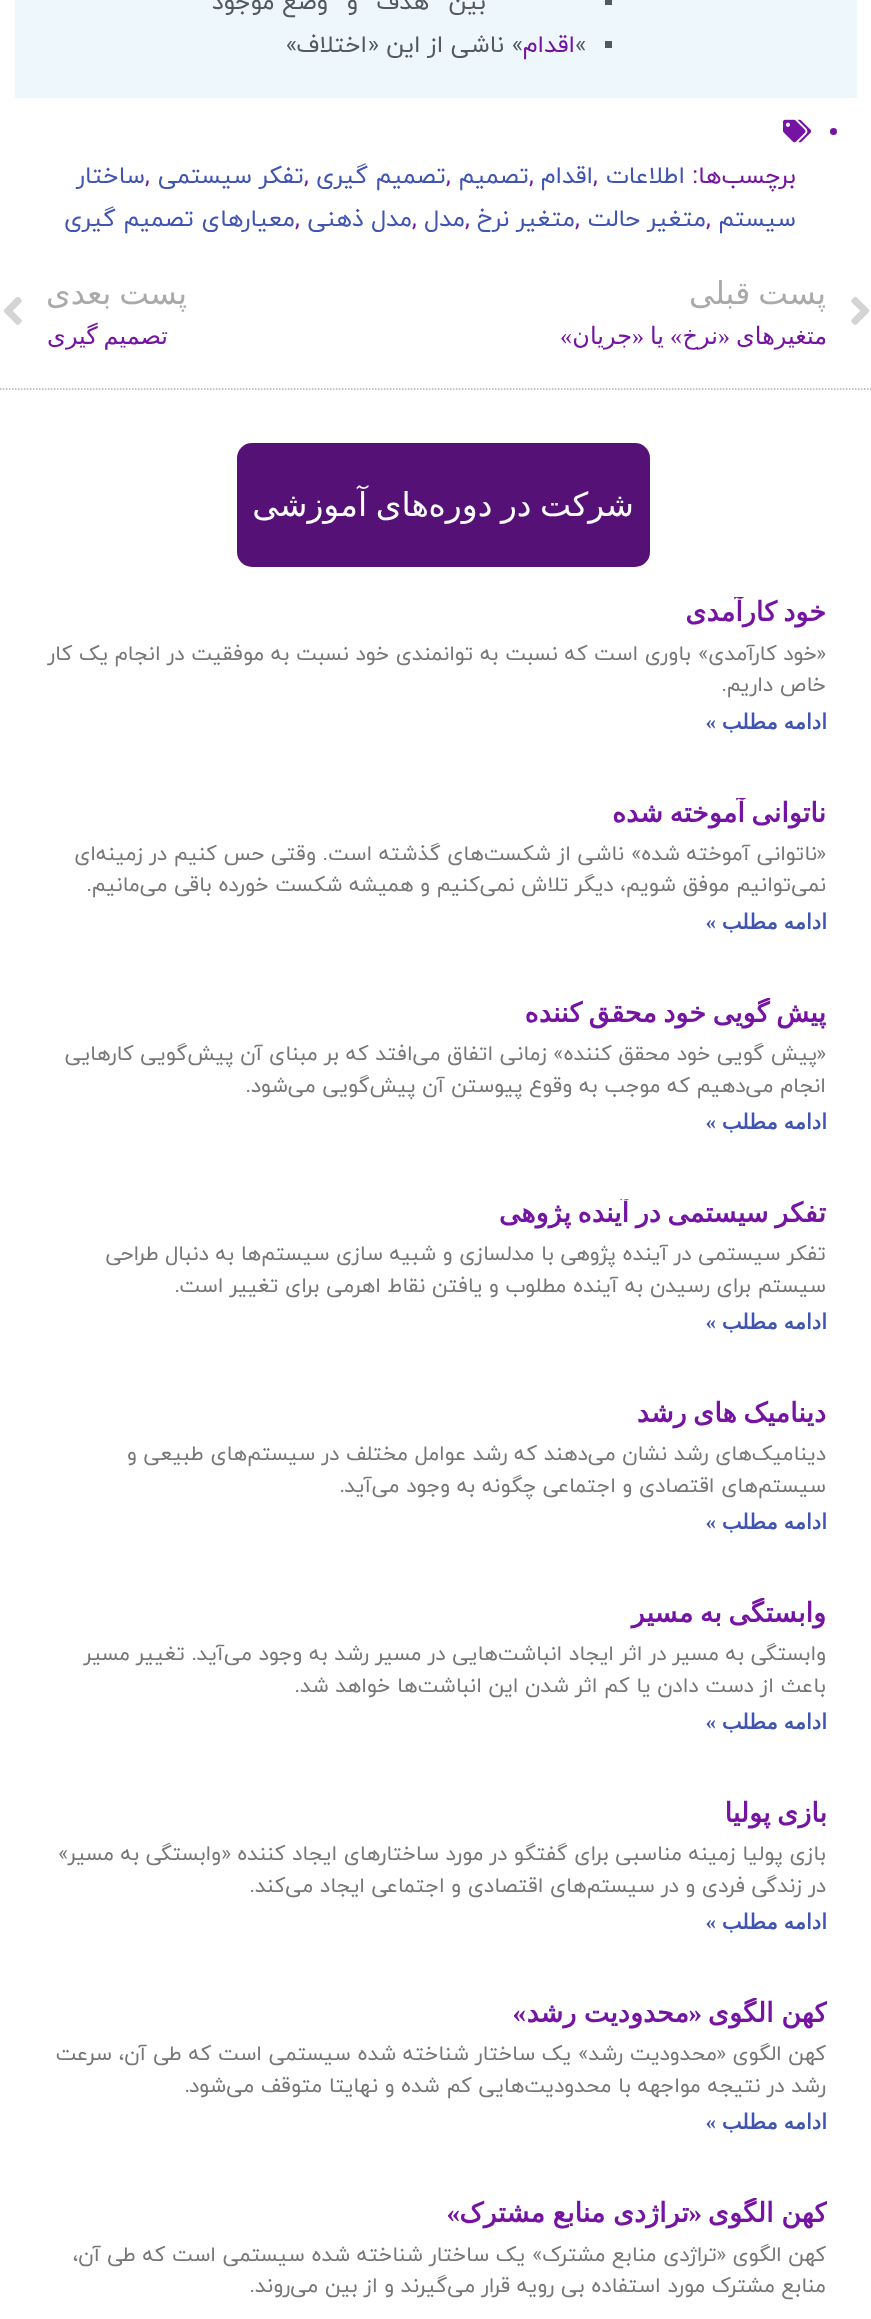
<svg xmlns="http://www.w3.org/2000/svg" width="871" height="2319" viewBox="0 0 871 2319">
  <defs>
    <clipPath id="clip1"><path d="M561 273h266v44H561z"/></clipPath>
    <clipPath id="clip2"><path d="M47 273h141v44H47z"/></clipPath>
    <clipPath id="clip3"><path d="M45 597h782v149H45z"/></clipPath>
    <clipPath id="clip4"><path d="M45 798h782v147H45z"/></clipPath>
    <clipPath id="clip5"><path d="M45 998h782v148H45z"/></clipPath>
    <clipPath id="clip6"><path d="M45 1199h782v147H45z"/></clipPath>
    <clipPath id="clip7"><path d="M45 1398h782v147H45z"/></clipPath>
    <clipPath id="clip8"><path d="M45 1598h782v148H45z"/></clipPath>
    <clipPath id="clip9"><path d="M45 1998h782v147H45z"/></clipPath>
    <clipPath id="clip10"><path d="M45 2198h782v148H45z"/></clipPath>
  </defs>
  <rect width="100%" height="100%" fill="#fff"/>
  <path d="M15 0h842v98H15z" fill="#eef8fc"/>
  <path d="M605 0h7v5H605z" fill="#54595f"/>
  <path d="M605 41h7v7H605z" fill="#54595f"/>
  <circle cx="833.5" cy="131.5" r="3.5" fill="#7514a2"/>
  <image x="783" y="119" width="29" height="24" href="img/1.png"/>
  <image x="851" y="296" width="19" height="29" href="img/2.png"/>
  <image x="3" y="296" width="19" height="29" href="img/3.png"/>
  <path d="M0 389H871.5" fill="none" stroke="#afafaf" stroke-width="1.5" stroke-dasharray="1.5 1.5"/>
  <rect x="237" y="443" width="413" height="124" rx="15" fill="#551175"/>
  <g font-family="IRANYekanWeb" font-size="24" direction="rtl" fill="#54595f">
    <text x="486" y="9">بین</text>
    <text x="429" y="9">هدف</text>
    <text x="358" y="9">و</text>
    <text x="328" y="9">وضع موجود</text>
  </g>
  <text x="575" y="52" font-family="Roboto" font-size="24" fill="#54595f">«</text>
  <text x="575" y="52" font-family="IRANYekanWeb" font-size="24" direction="rtl" fill="#7514a2">اقدام</text>
  <text x="523" y="52" font-family="Roboto" font-size="24" direction="rtl" fill="#54595f">»</text>
  <text x="504" y="52" font-family="IRANYekanWeb" font-size="24" direction="rtl" fill="#54595f">ناشی از این</text>
  <text x="379" y="52" font-family="Roboto" font-size="24" direction="rtl" fill="#54595f">«</text>
  <text x="367" y="52" font-family="IRANYekanWeb" font-size="24" direction="rtl" fill="#54595f">اختلاف</text>
  <text x="297" y="52" font-family="Roboto" font-size="24" direction="rtl" fill="#54595f">»</text>
  <text x="796" y="183" font-family="IRANYekanWeb" font-size="24" direction="rtl" fill="#7514a2">برچسب‌ها</text>
  <text x="698" y="183" font-family="Roboto" font-size="24" direction="rtl" fill="#7514a2">:</text>
  <text x="685" y="183" font-family="IRANYekanWeb" font-size="24" direction="rtl" fill="#4054b2">اطلاعات</text>
  <text x="593" y="183" font-family="Roboto" font-size="24" fill="#7514a2">,</text>
  <text x="593" y="183" font-family="IRANYekanWeb" font-size="24" direction="rtl" fill="#4054b2">اقدام</text>
  <text x="529" y="183" font-family="Roboto" font-size="24" fill="#7514a2">,</text>
  <text x="529" y="183" font-family="IRANYekanWeb" font-size="24" direction="rtl" fill="#4054b2">تصمیم</text>
  <text x="446" y="183" font-family="Roboto" font-size="24" fill="#7514a2">,</text>
  <text x="446" y="183" font-family="IRANYekanWeb" font-size="24" direction="rtl" fill="#4054b2">تصمیم گیری</text>
  <text x="304" y="183" font-family="Roboto" font-size="24" fill="#7514a2">,</text>
  <text x="304" y="183" font-family="IRANYekanWeb" font-size="24" direction="rtl" fill="#4054b2">تفکر سیستمی</text>
  <text x="145" y="183" font-family="Roboto" font-size="24" fill="#7514a2">,</text>
  <g font-family="IRANYekanWeb" font-size="24" direction="rtl" fill="#4054b2">
    <text x="145" y="183">ساختار</text>
    <text x="796" y="226">سیستم</text>
  </g>
  <text x="706" y="226" font-family="Roboto" font-size="24" fill="#7514a2">,</text>
  <text x="706" y="226" font-family="IRANYekanWeb" font-size="24" direction="rtl" fill="#4054b2">متغیر حالت</text>
  <text x="575" y="226" font-family="Roboto" font-size="24" fill="#7514a2">,</text>
  <text x="575" y="226" font-family="IRANYekanWeb" font-size="24" direction="rtl" fill="#4054b2">متغیر نرخ</text>
  <text x="465" y="226" font-family="Roboto" font-size="24" fill="#7514a2">,</text>
  <text x="465" y="226" font-family="IRANYekanWeb" font-size="24" direction="rtl" fill="#4054b2">مدل</text>
  <text x="412" y="226" font-family="Roboto" font-size="24" fill="#7514a2">,</text>
  <text x="412" y="226" font-family="IRANYekanWeb" font-size="24" direction="rtl" fill="#4054b2">مدل ذهنی</text>
  <text x="295" y="226" font-family="Roboto" font-size="24" fill="#7514a2">,</text>
  <text x="295" y="226" font-family="IRANYekanWeb" font-size="24" direction="rtl" fill="#4054b2">معیارهای تصمیم گیری</text>
  <g clip-path="url(#clip1)">
    <text x="826" y="304" word-spacing="-2" font-family="DejaVu Sans" font-size="31.5" direction="rtl" fill="#aaa">پست قبلی</text>
  </g>
  <text x="827" y="344" font-family="DejaVu Sans" font-size="24" direction="rtl" fill="#7514a2">متغیرهای</text>
  <text x="730" y="344" font-family="Liberation Serif" font-size="24" direction="rtl" fill="#7514a2">«</text>
  <text x="718" y="344" font-family="DejaVu Sans" font-size="24" direction="rtl" fill="#7514a2">نرخ</text>
  <text x="682" y="344" font-family="Liberation Serif" font-size="24" direction="rtl" fill="#7514a2">»</text>
  <text x="664" y="344" font-family="DejaVu Sans" font-size="24" direction="rtl" fill="#7514a2">یا</text>
  <text x="644" y="344" font-family="Liberation Serif" font-size="24" direction="rtl" fill="#7514a2">«</text>
  <text x="632" y="344" font-family="DejaVu Sans" font-size="24" direction="rtl" fill="#7514a2">جریان</text>
  <text x="572" y="344" font-family="Liberation Serif" font-size="24" direction="rtl" fill="#7514a2">»</text>
  <g clip-path="url(#clip2)">
    <text x="187" y="304" word-spacing="-2" font-family="DejaVu Sans" font-size="31.5" direction="rtl" fill="#aaa">پست بعدی</text>
  </g>
  <text x="168" y="344" word-spacing="-2" font-family="DejaVu Sans" font-size="24" direction="rtl" fill="#7514a2">تصمیم گیری</text>
  <g font-family="DejaVu Sans" font-size="33" direction="rtl" fill="#fff">
    <text x="634" y="516" word-spacing="-2">شرکت در دوره</text>
    <text x="429" y="516" word-spacing="-2">های آموزشی</text>
  </g>
  <g clip-path="url(#clip3)">
    <text x="826" y="621" word-spacing="-2" font-family="DejaVu Sans" font-size="27" font-weight="bold" direction="rtl" fill="#7514a2">خود کارآمدی</text>
  </g>
  <text x="826" y="660" font-family="Roboto" font-size="21" direction="rtl" fill="#777">«</text>
  <text x="817" y="660" font-family="IRANYekanWeb" font-size="21" direction="rtl" fill="#777">خود کارآمدی</text>
  <text x="708" y="660" font-family="Roboto" font-size="21" direction="rtl" fill="#777">»</text>
  <g font-family="IRANYekanWeb" font-size="21" direction="rtl" fill="#777">
    <text x="691" y="660">باوری است که نسبت به توانمندی خود نسبت به موفقیت در انجام یک کار</text>
    <text x="826" y="691">خاص داریم</text>
  </g>
  <text x="727" y="691" font-family="Roboto" font-size="21" direction="rtl" fill="#777">.</text>
  <text x="827" y="729" word-spacing="-1" font-family="DejaVu Sans" font-size="21" font-weight="bold" direction="rtl" fill="#4054b2">ادامه مطلب</text>
  <text x="716" y="729" font-family="Liberation Serif" font-size="21" font-weight="bold" direction="rtl" fill="#4054b2">»</text>
  <g clip-path="url(#clip4)">
    <text x="826" y="822" word-spacing="-2" font-family="DejaVu Sans" font-size="27" font-weight="bold" direction="rtl" fill="#7514a2">ناتوانی آموخته شده</text>
  </g>
  <text x="826" y="860" font-family="Roboto" font-size="21" direction="rtl" fill="#777">«</text>
  <text x="817" y="860" font-family="IRANYekanWeb" font-size="21" direction="rtl" fill="#777">ناتوانی آموخته شده</text>
  <text x="641" y="860" font-family="Roboto" font-size="21" direction="rtl" fill="#777">»</text>
  <text x="624" y="860" font-family="IRANYekanWeb" font-size="21" direction="rtl" fill="#777">ناشی از شکست‌های گذشته است</text>
  <text x="328" y="860" font-family="Roboto" font-size="21" direction="rtl" fill="#777">.</text>
  <g font-family="IRANYekanWeb" font-size="21" direction="rtl" fill="#777">
    <text x="316" y="860">وقتی حس کنیم در زمینه‌ای</text>
    <text x="826" y="891">نمی‌توانیم موفق شویم، دیگر تلاش نمی‌کنیم و همیشه شکست خورده باقی می‌مانیم</text>
  </g>
  <text x="92" y="891" font-family="Roboto" font-size="21" direction="rtl" fill="#777">.</text>
  <text x="827" y="929" word-spacing="-1" font-family="DejaVu Sans" font-size="21" font-weight="bold" direction="rtl" fill="#4054b2">ادامه مطلب</text>
  <text x="716" y="929" font-family="Liberation Serif" font-size="21" font-weight="bold" direction="rtl" fill="#4054b2">»</text>
  <g clip-path="url(#clip5)">
    <text x="826" y="1022" word-spacing="-2" font-family="DejaVu Sans" font-size="27" font-weight="bold" direction="rtl" fill="#7514a2">پیش گویی خود محقق کننده</text>
  </g>
  <text x="826" y="1060" font-family="Roboto" font-size="21" direction="rtl" fill="#777">«</text>
  <text x="817" y="1060" font-family="IRANYekanWeb" font-size="21" direction="rtl" fill="#777">پیش گویی خود محقق کننده</text>
  <text x="563" y="1060" font-family="Roboto" font-size="21" direction="rtl" fill="#777">»</text>
  <g font-family="IRANYekanWeb" font-size="21" direction="rtl" fill="#777">
    <text x="547" y="1060">زمانی اتفاق می‌افتد که بر مبنای آن پیش‌گویی کارهایی</text>
    <text x="826" y="1092">انجام می‌دهیم که موجب به وقوع پیوستن آن پیش‌گویی می‌شود</text>
  </g>
  <text x="251" y="1092" font-family="Roboto" font-size="21" direction="rtl" fill="#777">.</text>
  <text x="827" y="1129" word-spacing="-1" font-family="DejaVu Sans" font-size="21" font-weight="bold" direction="rtl" fill="#4054b2">ادامه مطلب</text>
  <text x="716" y="1129" font-family="Liberation Serif" font-size="21" font-weight="bold" direction="rtl" fill="#4054b2">»</text>
  <g clip-path="url(#clip6)">
    <text x="826" y="1222" word-spacing="-2" font-family="DejaVu Sans" font-size="27" font-weight="bold" direction="rtl" fill="#7514a2">تفکر سیستمی در آینده پژوهی</text>
  </g>
  <g font-family="IRANYekanWeb" font-size="21" direction="rtl" fill="#777">
    <text x="826" y="1260">تفکر سیستمی در آینده پژوهی با مدلسازی و شبیه سازی سیستم‌ها به دنبال طراحی</text>
    <text x="826" y="1292">سیستم برای رسیدن به آینده مطلوب و یافتن نقاط اهرمی برای تغییر است</text>
  </g>
  <text x="180" y="1292" font-family="Roboto" font-size="21" direction="rtl" fill="#777">.</text>
  <text x="827" y="1329" word-spacing="-1" font-family="DejaVu Sans" font-size="21" font-weight="bold" direction="rtl" fill="#4054b2">ادامه مطلب</text>
  <text x="716" y="1329" font-family="Liberation Serif" font-size="21" font-weight="bold" direction="rtl" fill="#4054b2">»</text>
  <g clip-path="url(#clip7)">
    <text x="826" y="1422" word-spacing="-2" font-family="DejaVu Sans" font-size="27" font-weight="bold" direction="rtl" fill="#7514a2">دینامیک های رشد</text>
  </g>
  <g font-family="IRANYekanWeb" font-size="21" direction="rtl" fill="#777">
    <text x="826" y="1460">دینامیک‌های رشد نشان می‌دهند که رشد عوامل مختلف در سیستم‌های طبیعی و</text>
    <text x="826" y="1492">سیستم‌های اقتصادی و اجتماعی چگونه به وجود می‌آید</text>
  </g>
  <text x="345" y="1492" font-family="Roboto" font-size="21" direction="rtl" fill="#777">.</text>
  <text x="827" y="1529" word-spacing="-1" font-family="DejaVu Sans" font-size="21" font-weight="bold" direction="rtl" fill="#4054b2">ادامه مطلب</text>
  <text x="716" y="1529" font-family="Liberation Serif" font-size="21" font-weight="bold" direction="rtl" fill="#4054b2">»</text>
  <g clip-path="url(#clip8)">
    <text x="826" y="1622" word-spacing="-2" font-family="DejaVu Sans" font-size="27" font-weight="bold" direction="rtl" fill="#7514a2">وابستگی به مسیر</text>
  </g>
  <text x="826" y="1660" font-family="IRANYekanWeb" font-size="21" direction="rtl" fill="#777">وابستگی به مسیر در اثر ایجاد انباشت‌هایی در مسیر رشد به وجود می‌آید</text>
  <text x="197" y="1660" font-family="Roboto" font-size="21" direction="rtl" fill="#777">.</text>
  <g font-family="IRANYekanWeb" font-size="21" direction="rtl" fill="#777">
    <text x="185" y="1660">تغییر مسیر</text>
    <text x="826" y="1692">باعث از دست دادن یا کم اثر شدن این انباشت‌ها خواهد شد</text>
  </g>
  <text x="300" y="1692" font-family="Roboto" font-size="21" direction="rtl" fill="#777">.</text>
  <text x="827" y="1729" word-spacing="-1" font-family="DejaVu Sans" font-size="21" font-weight="bold" direction="rtl" fill="#4054b2">ادامه مطلب</text>
  <text x="716" y="1729" font-family="Liberation Serif" font-size="21" font-weight="bold" direction="rtl" fill="#4054b2">»</text>
  <text x="827" y="1822" word-spacing="-2" font-family="DejaVu Sans" font-size="27" font-weight="bold" direction="rtl" fill="#7514a2">بازی پولیا</text>
  <text x="826" y="1860" font-family="IRANYekanWeb" font-size="21" direction="rtl" fill="#777">بازی پولیا زمینه مناسبی برای گفتگو در مورد ساختارهای ایجاد کننده</text>
  <g font-family="Roboto" font-size="21" direction="rtl" fill="#777">
    <text x="231" y="1860">«</text>
    <text x="68" y="1860">»</text>
  </g>
  <g font-family="IRANYekanWeb" font-size="21" direction="rtl" fill="#777">
    <text x="221" y="1860">وابستگی به مسیر</text>
    <text x="826" y="1892">در زندگی فردی و در سیستم‌های اقتصادی و اجتماعی ایجاد می‌کند</text>
  </g>
  <text x="255" y="1892" font-family="Roboto" font-size="21" direction="rtl" fill="#777">.</text>
  <text x="827" y="1929" word-spacing="-1" font-family="DejaVu Sans" font-size="21" font-weight="bold" direction="rtl" fill="#4054b2">ادامه مطلب</text>
  <text x="716" y="1929" font-family="Liberation Serif" font-size="21" font-weight="bold" direction="rtl" fill="#4054b2">»</text>
  <g clip-path="url(#clip9)">
    <text x="827" y="2022" word-spacing="-1" font-family="DejaVu Sans" font-size="27" font-weight="bold" direction="rtl" fill="#7514a2">کهن الگوی</text>
  </g>
  <text x="702" y="2022" font-family="Liberation Serif" font-size="27" font-weight="bold" direction="rtl" fill="#7514a2">«</text>
  <text x="689" y="2022" word-spacing="-1" font-family="DejaVu Sans" font-size="27" font-weight="bold" direction="rtl" fill="#7514a2">محدودیت رشد</text>
  <text x="526" y="2022" font-family="Liberation Serif" font-size="27" font-weight="bold" direction="rtl" fill="#7514a2">»</text>
  <text x="826" y="2060" font-family="IRANYekanWeb" font-size="21" direction="rtl" fill="#777">کهن الگوی</text>
  <text x="726" y="2060" font-family="Roboto" font-size="21" direction="rtl" fill="#777">«</text>
  <text x="717" y="2060" font-family="IRANYekanWeb" font-size="21" direction="rtl" fill="#777">محدودیت رشد</text>
  <text x="588" y="2060" font-family="Roboto" font-size="21" direction="rtl" fill="#777">»</text>
  <g font-family="IRANYekanWeb" font-size="21" direction="rtl" fill="#777">
    <text x="571" y="2060">یک ساختار شناخته شده سیستمی است که طی آن، سرعت</text>
    <text x="826" y="2092">رشد در نتیجه مواجهه با محدودیت‌هایی کم شده و نهایتا متوقف می‌شود</text>
  </g>
  <text x="190" y="2092" font-family="Roboto" font-size="21" direction="rtl" fill="#777">.</text>
  <text x="827" y="2129" word-spacing="-1" font-family="DejaVu Sans" font-size="21" font-weight="bold" direction="rtl" fill="#4054b2">ادامه مطلب</text>
  <text x="716" y="2129" font-family="Liberation Serif" font-size="21" font-weight="bold" direction="rtl" fill="#4054b2">»</text>
  <g clip-path="url(#clip10)">
    <text x="827" y="2222" word-spacing="-1" font-family="DejaVu Sans" font-size="27" font-weight="bold" direction="rtl" fill="#7514a2">کهن الگوی</text>
  </g>
  <text x="689" y="2222" word-spacing="-1" font-family="DejaVu Sans" font-size="27" font-weight="bold" direction="rtl" fill="#7514a2">تراژدی منابع مشترک</text>
  <g font-family="Liberation Serif" font-size="27" font-weight="bold" direction="rtl" fill="#7514a2">
    <text x="702" y="2222">«</text>
    <text x="460" y="2222">»</text>
  </g>
  <text x="826" y="2261" font-family="IRANYekanWeb" font-size="21" direction="rtl" fill="#777">کهن الگوی</text>
  <text x="726" y="2261" font-family="Roboto" font-size="21" direction="rtl" fill="#777">«</text>
  <text x="717" y="2261" font-family="IRANYekanWeb" font-size="21" direction="rtl" fill="#777">تراژدی منابع مشترک</text>
  <text x="542" y="2261" font-family="Roboto" font-size="21" direction="rtl" fill="#777">»</text>
  <g font-family="IRANYekanWeb" font-size="21" direction="rtl" fill="#777">
    <text x="525" y="2261">یک ساختار شناخته شده سیستمی است که طی آن،</text>
    <text x="826" y="2292">منابع مشترک مورد استفاده بی رویه قرار می‌گیرند و از بین می‌روند</text>
  </g>
  <text x="255" y="2292" font-family="Roboto" font-size="21" direction="rtl" fill="#777">.</text>
</svg>
